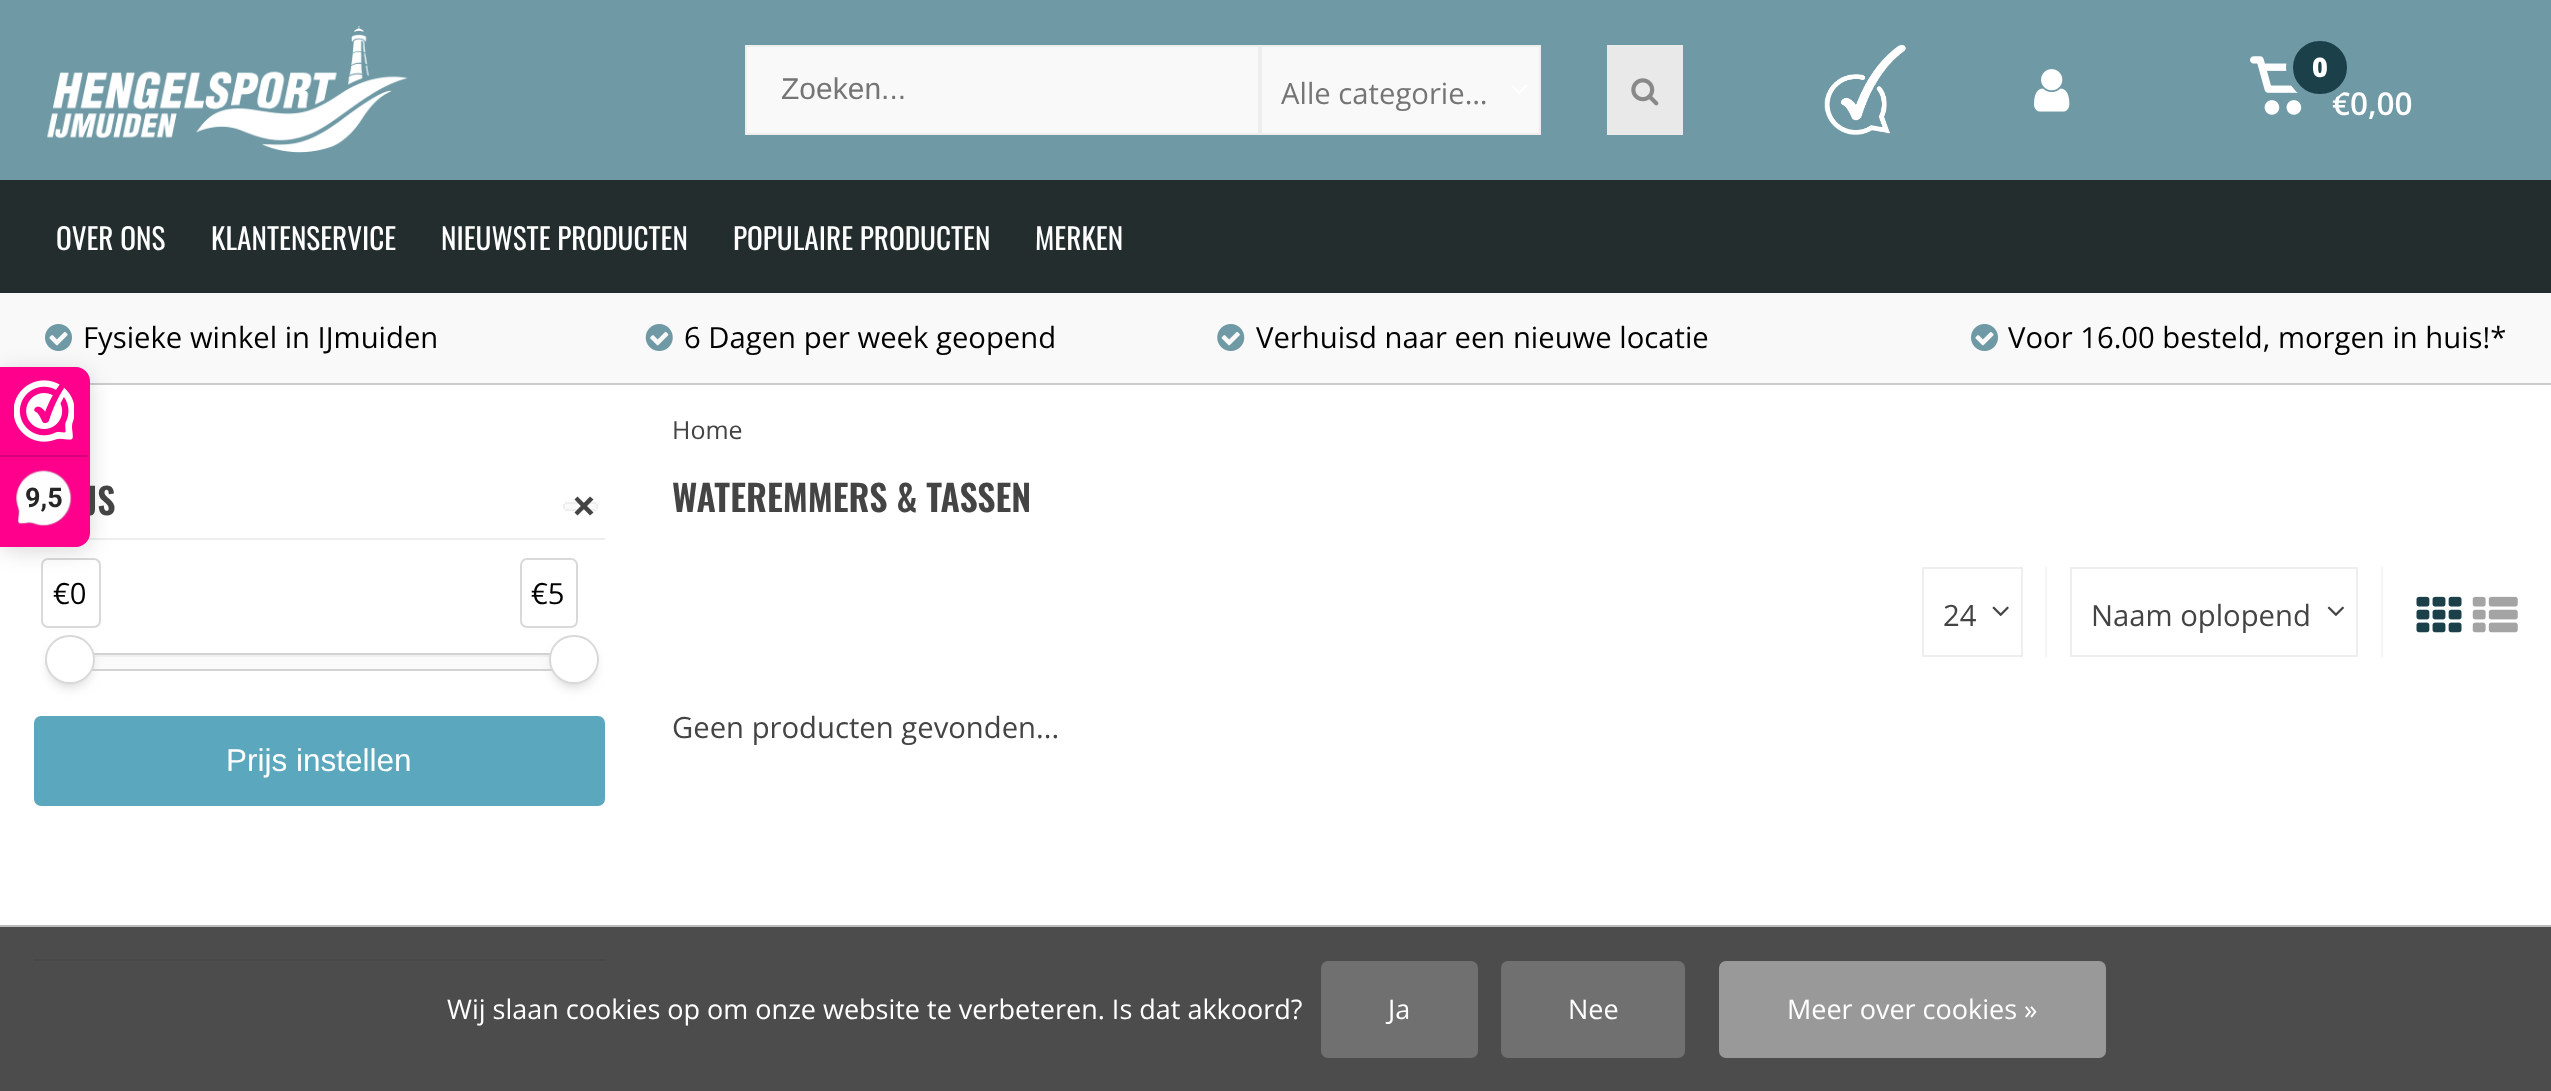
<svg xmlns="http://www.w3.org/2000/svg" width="2551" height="1091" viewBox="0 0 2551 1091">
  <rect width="100%" height="100%" fill="#fff"/>
  <path d="M0 293h2551v90H0z" fill="#f9f9f9"/>
  <path d="M90 383h2461v2H90z" fill="#ccc"/>
  <image x="45" y="324" width="27" height="27" href="img/9.png"/>
  <path d="M88 538h517v2H88z" fill="#eee"/>
  <rect x="45" y="653" width="549" height="18" rx="9" fill="#fafafa"/>
  <path d="M54 657H585C589 657 591 659 592 663C592 660 591 658 589 656L586 655H54C51 655 49 657 48 659L47 663C48 659 50 657 54 657Z" fill="#f0f0f0"/>
  <rect x="46" y="654" width="547" height="16" rx="8" fill="none" stroke="#d3d3d3" stroke-width="2"/>
  <rect x="52" y="648" width="36" height="36" rx="18" fill="#bbb" filter="blur(7px)"/>
  <rect x="42" y="559" width="58" height="68" rx="6" fill="none" stroke="#d9d9d9" stroke-width="2"/>
  <rect y="371" width="90" height="180" rx="14" fill="#00000026" filter="blur(11px)"/>
  <path d="M0 0h2551v180H0z" fill="#6e99a5"/>
  <image x="47" y="26" width="361" height="127" href="img/3.png"/>
  <path d="M746 46h513v88H746z" fill="#f9f9f9" stroke="#eee" stroke-width="2"/>
  <path d="M1261 46h279v88H1261z" fill="#f9f9f9" stroke="#eee" stroke-width="2"/>
  <image x="1511" y="85" width="16" height="9" href="img/4.png"/>
  <path d="M1607 45h76v90H1607z" fill="#e9e9e9"/>
  <image x="1631" y="78" width="28" height="28" href="img/5.png"/>
  <image x="1824" y="45" width="82" height="90" href="img/6.png"/>
  <image x="2034" y="69" width="36" height="43" href="img/7.png"/>
  <image x="2250" y="56" width="52" height="59" href="img/8.png"/>
  <path d="M0 180h2551v113H0z" fill="#232d2d"/>
  <image x="645" y="324" width="28" height="27" href="img/10.png"/>
  <image x="1217" y="324" width="28" height="27" href="img/11.png"/>
  <image x="1971" y="324" width="27" height="27" href="img/9.png"/>
  <path d="M567.5 502H587V511H567.5C565 511 563 509 563 506.5C563 504 565 502 567.5 502Z" fill="#f9f9f9"/>
  <path d="M565 502h9v2H565z" fill="#eee"/>
  <path d="M565 509h9v2H565z" fill="#eee"/>
  <path d="M563 504h2v5H563z" fill="#eee"/>
  <path d="M574 502H594.5C597 502 599 504 599 506.5C599 509 597 511 594.5 511H574Z" fill="#f9f9f9"/>
  <path d="M574 502h22v2H574z" fill="#eee"/>
  <path d="M596 504h2v5H596z" fill="#eee"/>
  <path d="M574 509h22v2H574z" fill="#eee"/>
  <path d="M574.5 512.5L590 496.5L593.5 499.5L577.5 515.5Z" fill="#444"/>
  <path d="M577.5 496.5L593.5 512.5L590 515.5L574.5 499.5Z" fill="#444"/>
  <rect x="46" y="636" width="48" height="47" rx="23.5" fill="#fff" stroke="#d9d9d9" stroke-width="2"/>
  <rect x="556" y="648" width="36" height="36" rx="18" fill="#bbb" filter="blur(7px)"/>
  <rect x="550" y="636" width="48" height="47" rx="23.5" fill="#fff" stroke="#d9d9d9" stroke-width="2"/>
  <rect x="521" y="559" width="56" height="68" rx="6" fill="none" stroke="#d9d9d9" stroke-width="2"/>
  <rect x="34" y="716" width="571" height="90" rx="7" fill="#5ba8be"/>
  <path d="M34 959h571v2H34z" fill="#eee"/>
  <path d="M2045 567h2v90H2045z" fill="#f5f5f5"/>
  <path d="M1923 568h99v88H1923z" fill="none" stroke="#eee" stroke-width="2"/>
  <image x="1992" y="606" width="17" height="10" href="img/12.png"/>
  <path d="M2381 567h2v90H2381z" fill="#f5f5f5"/>
  <path d="M2071 568h286v88H2071z" fill="none" stroke="#eee" stroke-width="2"/>
  <image x="2327" y="606" width="17" height="10" href="img/13.png"/>
  <image x="2416" y="596" width="46" height="37" href="img/14.png"/>
  <image x="2472" y="596" width="46" height="37" href="img/15.png"/>
  <path d="M0 927h2551v164H0z" fill="#000000b3"/>
  <path d="M0 925h2551v2H0z" fill="#bbb"/>
  <rect x="1321" y="961" width="157" height="97" rx="7" fill="#707070"/>
  <rect x="1501" y="961" width="184" height="97" rx="7" fill="#707070"/>
  <rect x="1719" y="961" width="387" height="97" rx="7" fill="#999"/>
  <text x="781" y="99" font-family="Liberation Sans" font-size="30" fill="#757575">Zoeken...</text>
  <text x="1281" y="104" font-family="Open Sans" font-size="29.25" fill="#757575">Alle categorie…</text>
  <text x="2332" y="115" font-family="Open Sans" font-size="31.5" font-weight="600" fill="#fff">€0,00</text>
  <rect x="2289.5" y="37.5" width="61" height="60" rx="30" fill="#1c404a" stroke="#6e99a5" stroke-width="7"/>
  <text x="2312" y="77" font-family="Open Sans" font-size="27" font-weight="800" fill="#fff">0</text>
  <g font-family="Oswald" font-size="29.25" fill="#fff">
    <text x="56" y="250">OVER ONS</text>
    <text x="211" y="250">KLANTENSERVICE</text>
    <text x="441" y="250">NIEUWSTE PRODUCTEN</text>
    <text x="733" y="250">POPULAIRE PRODUCTEN</text>
    <text x="1035" y="250">MERKEN</text>
  </g>
  <g font-family="Open Sans" font-size="29.25" fill="#000">
    <text x="83" y="348">Fysieke winkel in IJmuiden</text>
    <text x="684" y="348">6 Dagen per week geopend</text>
    <text x="1256" y="348">Verhuisd naar een nieuwe locatie</text>
    <text x="2008" y="348">Voor 16.00 besteld, morgen in huis!*</text>
  </g>
  <text x="85" y="515" font-family="Oswald" font-size="36" font-weight="600" fill="#444">JS</text>
  <path d="M0 367H76C83.5 367 90 373.5 90 381V533C90 540.5 83.5 547 76 547H0Z" fill="#fe008c"/>
  <path d="M0 455h88v2H0z" fill="#d80077"/>
  <image x="14" y="380" width="60" height="62" href="img/1.png"/>
  <image x="16" y="470" width="56" height="57" href="img/2.png"/>
  <text x="25" y="507" font-family="Roboto" font-size="27" font-weight="bold" fill="#272626">9,5</text>
  <g font-family="Open Sans" font-size="29.25" fill="#000">
    <text x="53" y="604">€0</text>
    <text x="531" y="604">€5</text>
  </g>
  <text x="226" y="771" font-family="Liberation Sans" font-size="31.5" fill="#fff">Prijs instellen</text>
  <text x="672" y="439" font-family="Open Sans" font-size="25" fill="#444">Home</text>
  <text x="672" y="512" font-family="Oswald" font-size="36" font-weight="600" fill="#444">WATEREMMERS &amp; TASSEN</text>
  <g font-family="Open Sans" font-size="29.25" fill="#444">
    <text x="1943" y="626">24</text>
    <text x="2091" y="626">Naam oplopend</text>
    <text x="672" y="738">Geen producten gevonden...</text>
  </g>
  <g font-family="Open Sans" font-size="27" fill="#fff">
    <text x="447" y="1019">Wij slaan cookies op om onze website te verbeteren. Is dat akkoord?</text>
    <text x="1388" y="1019">Ja</text>
    <text x="1568" y="1019">Nee</text>
    <text x="1787" y="1019">Meer over cookies »</text>
  </g>
</svg>
